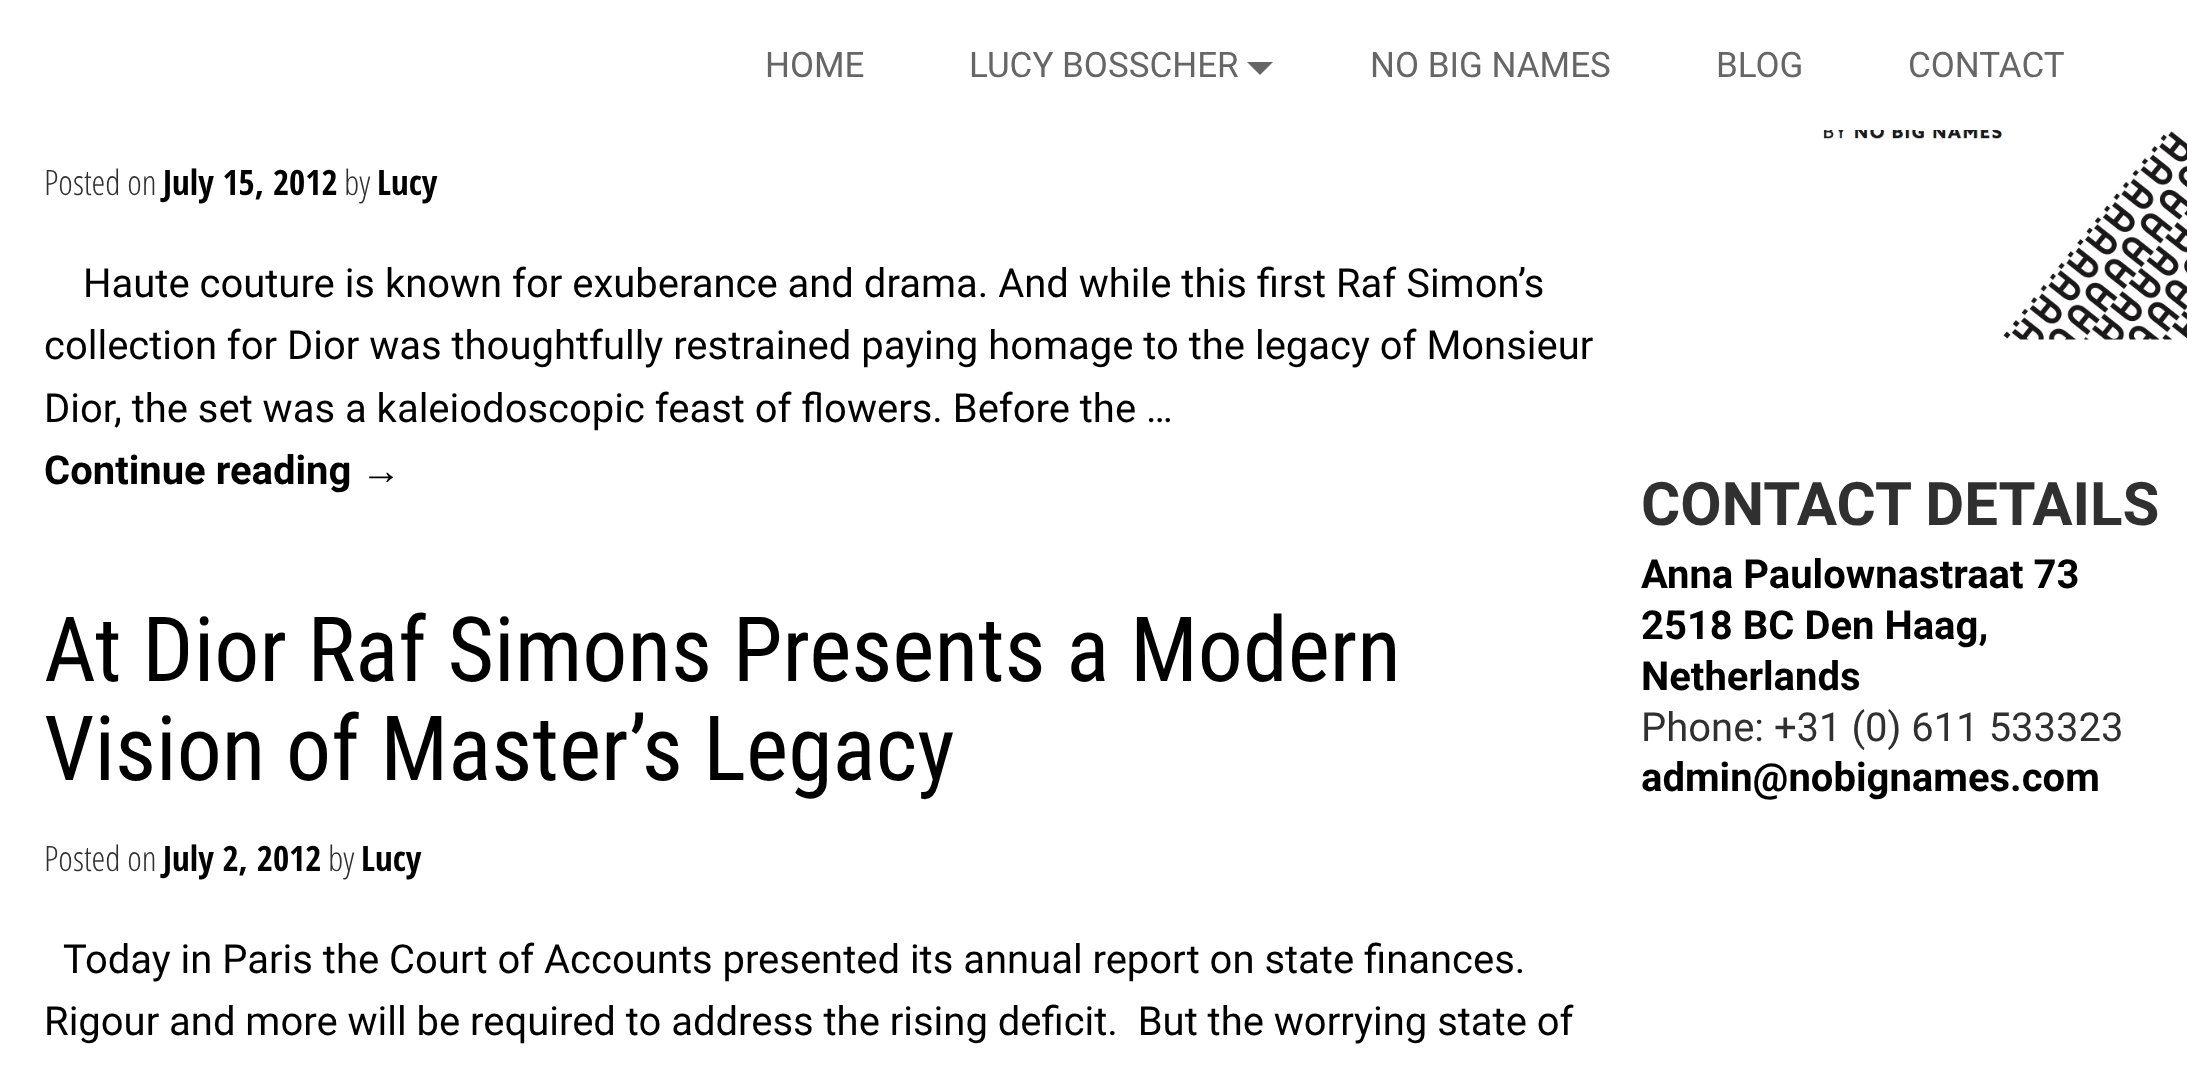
<svg xmlns="http://www.w3.org/2000/svg" width="2187" height="1084" viewBox="0 0 2187 1084">
  <rect width="100%" height="100%" fill="#fff"/>
  <path d="M1247 62H1273L1260 75Z" fill="#666"/>
  <image x="1760" y="130" width="427" height="210" href="img/1.png"/>
  <g font-family="Roboto" font-size="35" fill="#666">
    <text x="765" y="77">HOME</text>
    <text x="969" y="77">LUCY BOSSCHER</text>
    <text x="1370" y="77">NO BIG NAMES</text>
    <text x="1716" y="77">BLOG</text>
    <text x="1908" y="77">CONTACT</text>
  </g>
  <text x="44" y="195" font-family="Open Sans Condensed" font-size="35" font-weight="300" fill="#303030">Posted on</text>
  <text x="163" y="195" font-family="Open Sans Condensed" font-size="35" font-weight="bold" fill="#000">July 15, 2012</text>
  <text x="344" y="195" font-family="Open Sans Condensed" font-size="35" font-weight="300" fill="#303030">by</text>
  <text x="377" y="195" font-family="Open Sans Condensed" font-size="35" font-weight="bold" fill="#000">Lucy</text>
  <g font-family="Roboto" font-size="40" fill="#000">
    <text x="83" y="297">Haute couture is known for exuberance and drama. And while this first Raf Simon’s</text>
    <text x="44" y="359">collection for Dior was thoughtfully restrained paying homage to the legacy of Monsieur</text>
    <text x="44" y="422">Dior, the set was a kaleiodoscopic feast of flowers. Before the …</text>
  </g>
  <text x="44" y="484" font-family="Roboto" font-size="40" font-weight="bold" fill="#000">Continue reading</text>
  <text x="361" y="484" font-family="Liberation Sans" font-size="40" font-weight="bold" fill="#000">→</text>
  <g font-family="Roboto Condensed" font-size="90" fill="#000">
    <text x="44" y="681">At Dior Raf Simons Presents a Modern</text>
    <text x="44" y="780">Vision of Master’s Legacy</text>
  </g>
  <text x="44" y="871" font-family="Open Sans Condensed" font-size="35" font-weight="300" fill="#303030">Posted on</text>
  <text x="163" y="871" font-family="Open Sans Condensed" font-size="35" font-weight="bold" fill="#000">July 2, 2012</text>
  <text x="328" y="871" font-family="Open Sans Condensed" font-size="35" font-weight="300" fill="#303030">by</text>
  <text x="361" y="871" font-family="Open Sans Condensed" font-size="35" font-weight="bold" fill="#000">Lucy</text>
  <g font-family="Roboto" font-size="40" fill="#000">
    <text x="63" y="973">Today in Paris the Court of Accounts presented its annual report on state finances.</text>
    <text x="44" y="1035" xml:space="preserve">Rigour and more will be required to address the rising deficit.  But the worrying state of</text>
  </g>
  <text x="1641" y="525" font-family="Roboto" font-size="60" font-weight="bold" fill="#303030">CONTACT DETAILS</text>
  <g font-family="Roboto" font-size="40" font-weight="bold" fill="#000">
    <text x="1641" y="588">Anna Paulownastraat 73</text>
    <text x="1641" y="639">2518 BC Den Haag,</text>
    <text x="1641" y="690">Netherlands</text>
  </g>
  <text x="1641" y="741" font-family="Roboto" font-size="40" fill="#303030">Phone: +31 (0) 611 533323</text>
  <text x="1641" y="791" font-family="Roboto" font-size="40" font-weight="bold" fill="#000">admin@nobignames.com</text>
</svg>
